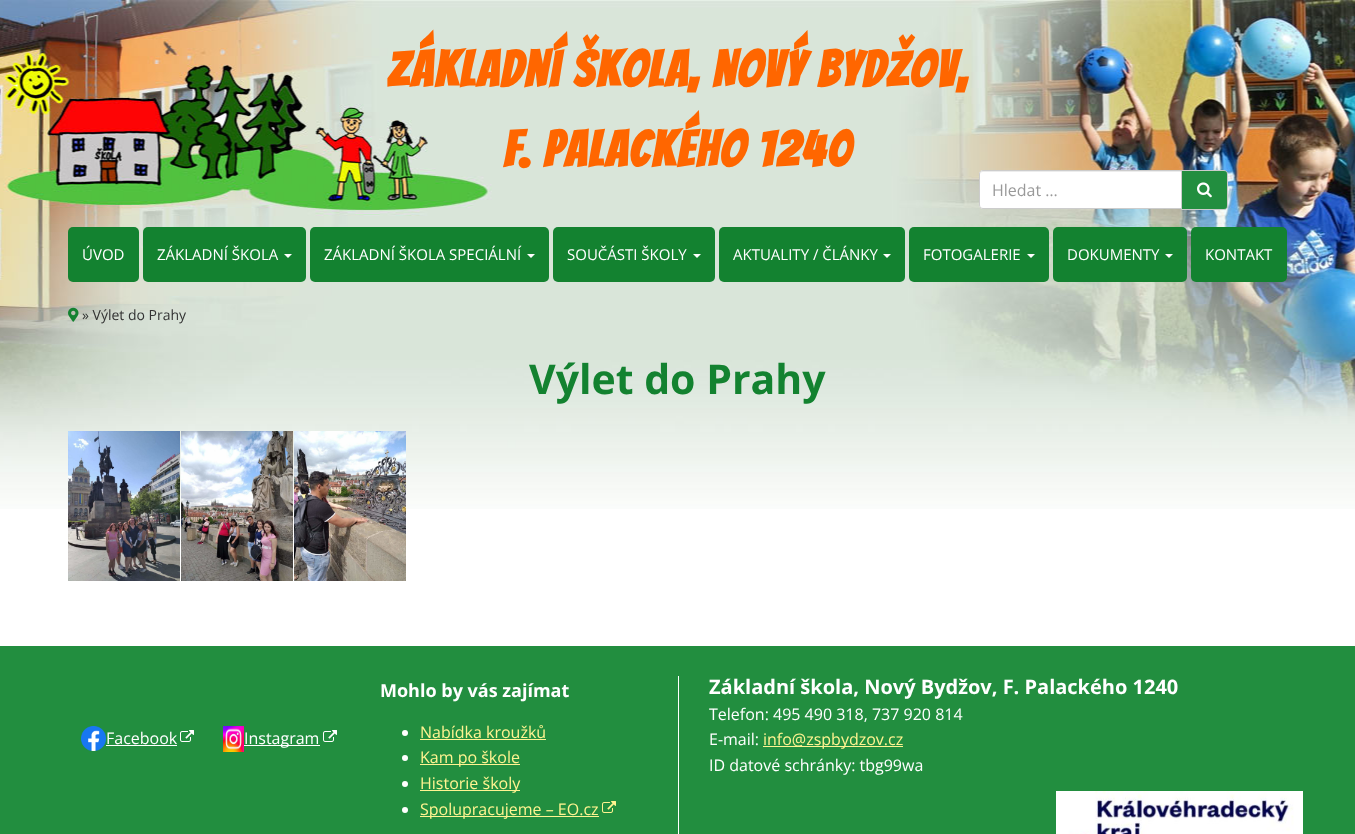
<svg xmlns="http://www.w3.org/2000/svg" width="1355" height="834" viewBox="0 0 1355 834">
  <rect width="100%" height="100%" fill="#fff"/>
  <image x="0" y="0" width="1355" height="509" href="img/1.png"/>
  <path d="M983 170H1182V209H983C981 209 979 207 979 205V174C979 172 981 170 983 170Z" fill="#fff"/>
  <path d="M983 172H1181V171H983C981 171 980 173 980 175C980 173 981 172 983 172Z" fill="#ececec"/>
  <path d="M983 170.5H1181.5V208.5H983C981 208.5 979.5 207 979.5 205V174C979.5 172 981 170.5 983 170.5Z" fill="none" stroke="#ccc"/>
  <path d="M1181.5 170.5H1224C1226 170.5 1227.5 172 1227.5 174V206C1227.5 208 1226 209.5 1224 209.5H1181.5Z" fill="#228e3f" stroke="#ccc"/>
  <image x="1197" y="182" width="15" height="16" href="img/2.png"/>
  <rect x="68" y="227" width="71" height="55" rx="5" fill="#138230"/>
  <rect x="143" y="227" width="163" height="55" rx="5" fill="#138230"/>
  <path d="M284 254H292L288 258Z" fill="#fff"/>
  <rect x="310" y="227" width="239" height="55" rx="5" fill="#138230"/>
  <path d="M527 254H535L531 258Z" fill="#fff"/>
  <rect x="553" y="227" width="162" height="55" rx="5" fill="#138230"/>
  <path d="M693 254H701L697 258Z" fill="#fff"/>
  <rect x="719" y="227" width="186" height="55" rx="5" fill="#138230"/>
  <path d="M883 254H891L887 258Z" fill="#fff"/>
  <rect x="909" y="227" width="140" height="55" rx="5" fill="#138230"/>
  <path d="M1027 254H1035L1031 258Z" fill="#fff"/>
  <rect x="1053" y="227" width="134" height="55" rx="5" fill="#138230"/>
  <path d="M1165 254H1173L1169 258Z" fill="#fff"/>
  <rect x="1191" y="227" width="96" height="55" rx="5" fill="#138230"/>
  <image x="68" y="307" width="11" height="15" href="img/3.png"/>
  <image x="68" y="431" width="112" height="150" href="img/4.png"/>
  <image x="181" y="431" width="112" height="150" href="img/5.png"/>
  <image x="294" y="431" width="112" height="150" href="img/6.png"/>
  <path d="M0 646h1355v188H0z" fill="#228e3f"/>
  <image x="81" y="726" width="25" height="25" href="img/7.png"/>
  <path d="M106 745h71v1H106z" fill="#fff"/>
  <image x="180" y="730" width="14" height="12" href="img/8.png"/>
  <image x="223" y="726" width="21" height="26" href="img/9.png"/>
  <path d="M244 745h76v1H244z" fill="#fff"/>
  <image x="323" y="730" width="14" height="12" href="img/8.png"/>
  <circle cx="405" cy="733" r="3" fill="#fff"/>
  <path d="M420 739h126v1H420z" fill="#fff491"/>
  <circle cx="405" cy="758" r="3" fill="#fff"/>
  <path d="M420 764h100v1H420z" fill="#fff491"/>
  <circle cx="405" cy="784" r="3" fill="#fff"/>
  <path d="M420 790h100v1H420z" fill="#fff491"/>
  <circle cx="405" cy="810" r="3" fill="#fff"/>
  <path d="M420 816h179v1H420z" fill="#fff491"/>
  <image x="602" y="801" width="14" height="12" href="img/10.png"/>
  <path d="M678 676h1v158H678z" fill="#fff"/>
  <path d="M763 746h140v1H763z" fill="#fff491"/>
  <image x="1056" y="791" width="247" height="43" href="img/11.png"/>
  <g font-family="Bangers" font-size="50" font-weight="bold" letter-spacing="2" fill="#f60">
    <text x="387" y="87">Základní škola, Nový Bydžov,</text>
    <text x="503" y="167">F. Palackého 1240</text>
  </g>
  <text x="992" y="196" font-family="Open Sans" font-size="16" fill="#999">Hledat …</text>
  <g font-family="Open Sans" font-size="15" fill="#fff">
    <text x="82" y="260">ÚVOD</text>
    <text x="157" y="260">ZÁKLADNÍ ŠKOLA</text>
    <text x="324" y="260">ZÁKLADNÍ ŠKOLA SPECIÁLNÍ</text>
    <text x="567" y="260">SOUČÁSTI ŠKOLY</text>
    <text x="733" y="260">AKTUALITY / ČLÁNKY</text>
    <text x="923" y="260">FOTOGALERIE</text>
    <text x="1067" y="260">DOKUMENTY</text>
    <text x="1205" y="260">KONTAKT</text>
  </g>
  <text x="82" y="320" font-family="Open Sans" font-size="14" fill="#333">» Výlet do Prahy</text>
  <text x="529" y="394" font-family="Open Sans" font-size="41" font-weight="bold" fill="#138230">Výlet do Prahy</text>
  <g font-family="Open Sans" font-size="16" fill="#fff">
    <text x="106" y="744">Facebook</text>
    <text x="244" y="744">Instagram</text>
  </g>
  <text x="380" y="697" font-family="Open Sans" font-size="18" font-weight="bold" fill="#fff">Mohlo by vás zajímat</text>
  <g font-family="Open Sans" font-size="16" fill="#fff491">
    <text x="420" y="738">Nabídka kroužků</text>
    <text x="420" y="763">Kam po škole</text>
    <text x="420" y="789">Historie školy</text>
    <text x="420" y="815">Spolupracujeme – EO.cz</text>
  </g>
  <text x="709" y="694" font-family="Open Sans" font-size="20" font-weight="bold" fill="#fff">Základní škola, Nový Bydžov, F. Palackého 1240</text>
  <g font-family="Open Sans" font-size="16" fill="#fff">
    <text x="709" y="720">Telefon: 495 490 318, 737 920 814</text>
    <text x="709" y="745">E-mail:</text>
  </g>
  <text x="763" y="745" font-family="Open Sans" font-size="16" fill="#fff491">info@zspbydzov.cz</text>
  <text x="709" y="771" font-family="Open Sans" font-size="16" fill="#fff">ID datové schránky: tbg99wa</text>
</svg>
